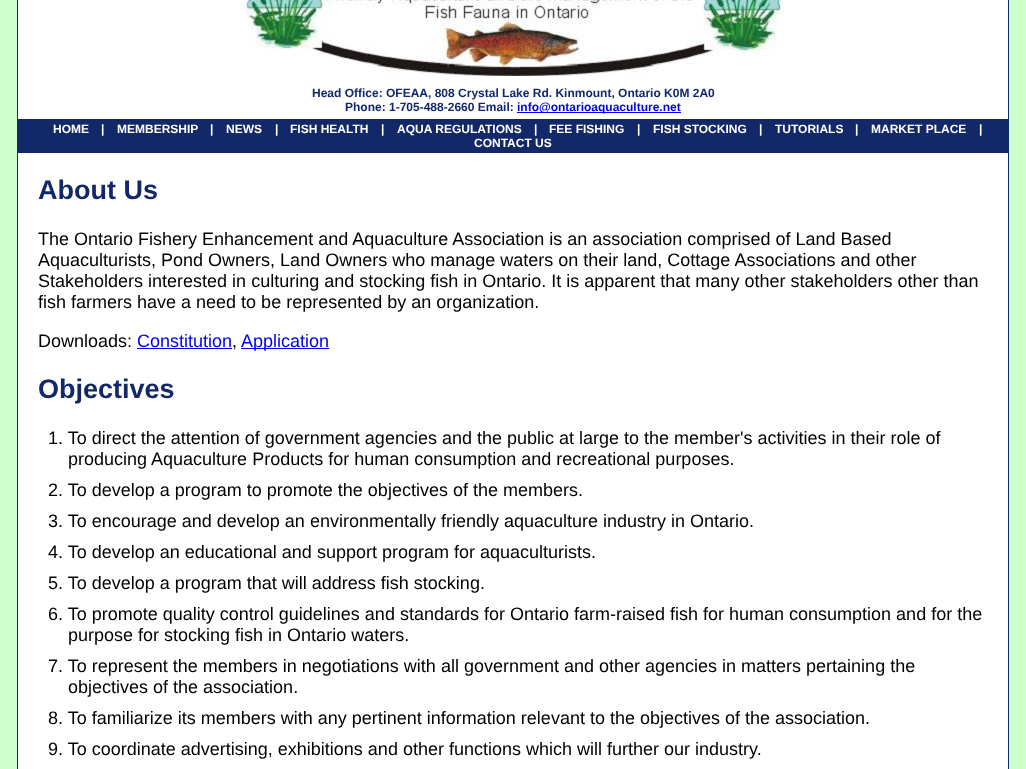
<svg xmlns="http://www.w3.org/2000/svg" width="1026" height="769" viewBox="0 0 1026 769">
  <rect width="100%" height="100%" fill="#cfc"/>
  <path d="M17.5 -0.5h991v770H17.5z" fill="#fff" stroke="#122869"/>
  <image x="240" y="0" width="544" height="76" href="img/1.png"/>
  <path d="M517 112h164v1H517z" fill="#00e"/>
  <path d="M18 119h990v34H18z" fill="#122869"/>
  <path d="M137 348h95v1H137z" fill="#00e"/>
  <path d="M241 348h88v1H241z" fill="#00e"/>
  <g font-family="Liberation Sans" font-size="12" font-weight="bold" fill="#122869">
    <text x="312" y="97">Head Office: OFEAA, 808 Crystal Lake Rd. Kinmount, Ontario K0M 2A0</text>
    <text x="345" y="111">Phone: 1-705-488-2660 Email:</text>
  </g>
  <text x="517" y="111" font-family="Liberation Sans" font-size="12" font-weight="bold" fill="#00e">info@ontarioaquaculture.net</text>
  <g font-family="Liberation Sans" font-size="12" font-weight="bold" fill="#fff">
    <text x="53" y="133">HOME</text>
    <text x="101" y="133">|</text>
    <text x="117" y="133">MEMBERSHIP</text>
    <text x="210" y="133">|</text>
    <text x="226" y="133">NEWS</text>
    <text x="275" y="133">|</text>
    <text x="290" y="133">FISH HEALTH</text>
    <text x="381" y="133">|</text>
    <text x="397" y="133">AQUA REGULATIONS</text>
    <text x="534" y="133">|</text>
    <text x="549" y="133">FEE FISHING</text>
    <text x="637" y="133">|</text>
    <text x="653" y="133">FISH STOCKING</text>
    <text x="759" y="133">|</text>
    <text x="775" y="133">TUTORIALS</text>
    <text x="855" y="133">|</text>
    <text x="871" y="133">MARKET PLACE</text>
    <text x="979" y="133">|</text>
    <text x="474" y="147">CONTACT US</text>
  </g>
  <text x="38" y="199" font-family="Liberation Sans" font-size="27" font-weight="bold" fill="#122869">About Us</text>
  <g font-family="Liberation Sans" font-size="18" fill="#000">
    <text x="38" y="245">The Ontario Fishery Enhancement and Aquaculture Association is an association comprised of Land Based</text>
    <text x="38" y="266">Aquaculturists, Pond Owners, Land Owners who manage waters on their land, Cottage Associations and other</text>
    <text x="38" y="287">Stakeholders interested in culturing and stocking fish in Ontario. It is apparent that many other stakeholders other than</text>
    <text x="38" y="308">fish farmers have a need to be represented by an organization.</text>
    <text x="38" y="347">Downloads:</text>
  </g>
  <text x="137" y="347" font-family="Liberation Sans" font-size="18" fill="#00e">Constitution</text>
  <text x="232" y="347" font-family="Liberation Sans" font-size="18" fill="#000">,</text>
  <text x="241" y="347" font-family="Liberation Sans" font-size="18" fill="#00e">Application</text>
  <text x="38" y="398" font-family="Liberation Sans" font-size="27" font-weight="bold" fill="#122869">Objectives</text>
  <g font-family="Liberation Sans" font-size="18" fill="#000">
    <text x="48" y="444">1. To direct the attention of government agencies and the public at large to the member's activities in their role of</text>
    <text x="68" y="465">producing Aquaculture Products for human consumption and recreational purposes.</text>
    <text x="48" y="496">2. To develop a program to promote the objectives of the members.</text>
    <text x="48" y="527">3. To encourage and develop an environmentally friendly aquaculture industry in Ontario.</text>
    <text x="48" y="558">4. To develop an educational and support program for aquaculturists.</text>
    <text x="48" y="589">5. To develop a program that will address fish stocking.</text>
    <text x="48" y="620">6. To promote quality control guidelines and standards for Ontario farm-raised fish for human consumption and for the</text>
    <text x="68" y="641">purpose for stocking fish in Ontario waters.</text>
    <text x="48" y="672">7. To represent the members in negotiations with all government and other agencies in matters pertaining the</text>
    <text x="68" y="693">objectives of the association.</text>
    <text x="48" y="724">8. To familiarize its members with any pertinent information relevant to the objectives of the association.</text>
    <text x="48" y="755">9. To coordinate advertising, exhibitions and other functions which will further our industry.</text>
  </g>
</svg>
